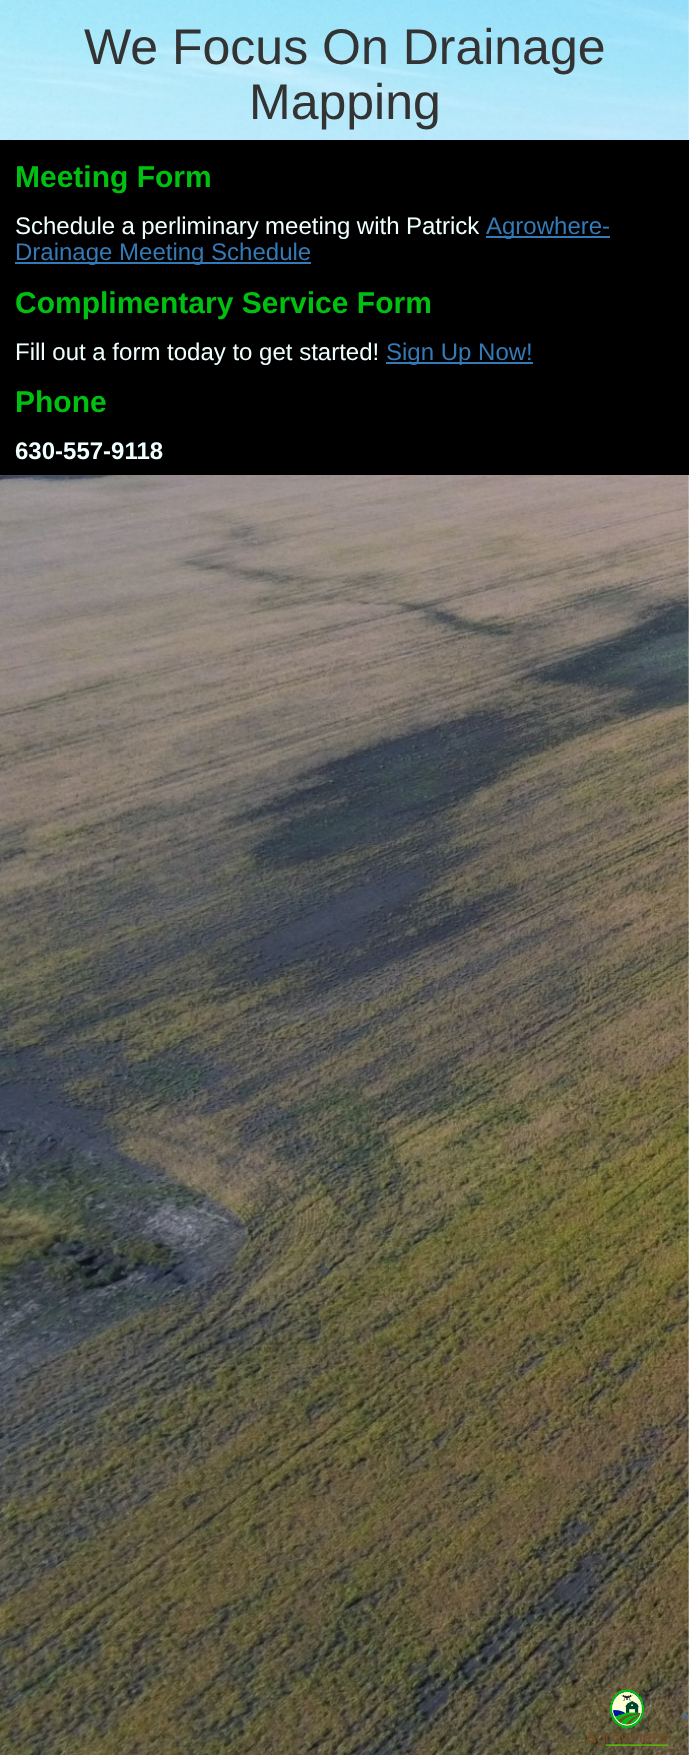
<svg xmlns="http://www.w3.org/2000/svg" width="689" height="1755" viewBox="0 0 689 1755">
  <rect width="100%" height="100%" fill="#fff"/>
  <image x="0" y="0" width="689" height="1755" href="img/1.png"/>
  <path d="M0 140h689v335H0z" fill="#000"/>
  <path d="M486 236h124v2H486z" fill="#337ab7"/>
  <path d="M15 262h296v2H15z" fill="#337ab7"/>
  <path d="M386 362h147v2H386z" fill="#337ab7"/>
  <image x="585" y="1689" width="84" height="57" href="img/2.png"/>
  <g font-family="Liberation Sans" font-size="50" fill="#333">
    <text x="84" y="64">We Focus On Drainage</text>
    <text x="249" y="119">Mapping</text>
  </g>
  <text x="15" y="187" font-family="Liberation Sans" font-size="30" font-weight="bold" fill="#00c012">Meeting Form</text>
  <text x="15" y="234" word-spacing="-0.25" font-family="Liberation Sans" font-size="24" fill="#f0ffff">Schedule a perliminary meeting with Patrick</text>
  <g font-family="Liberation Sans" font-size="24" fill="#337ab7">
    <text x="486" y="234">Agrowhere-</text>
    <text x="15" y="260">Drainage Meeting Schedule</text>
  </g>
  <text x="15" y="313" font-family="Liberation Sans" font-size="30" font-weight="bold" fill="#00c012">Complimentary Service Form</text>
  <text x="15" y="360" font-family="Liberation Sans" font-size="24" fill="#f0ffff">Fill out a form today to get started!</text>
  <text x="386" y="360" font-family="Liberation Sans" font-size="24" fill="#337ab7">Sign Up Now!</text>
  <text x="15" y="412" font-family="Liberation Sans" font-size="30" font-weight="bold" fill="#00c012">Phone</text>
  <text x="15" y="459" font-family="Liberation Sans" font-size="24" font-weight="bold" fill="#f0ffff">630-557-9118</text>
  <text x="681" y="1721" font-family="Liberation Sans" font-size="14" fill="#337ab7">&gt;</text>
</svg>
